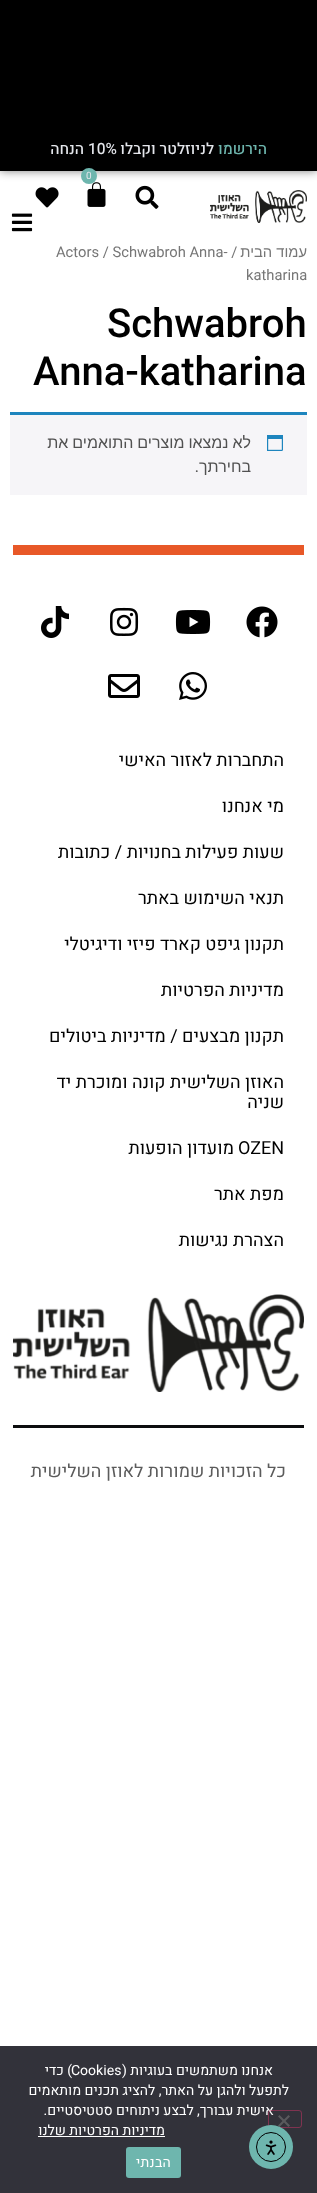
<svg xmlns="http://www.w3.org/2000/svg" width="317" height="2193" viewBox="0 0 317 2193">
  <rect width="100%" height="100%" fill="#fff"/>
  <path d="M0 0h317v171H0z" fill="#00000080" filter="blur(5px)"/>
  <path d="M0 0h317v171H0z" fill="#000"/>
  <image x="87" y="182" width="19" height="25" href="img/1.png"/>
  <circle cx="89" cy="176" r="8" fill="#6eb6ae"/>
  <image x="135" y="185" width="24" height="24" href="img/2.png"/>
  <image x="35" y="187" width="24" height="21" href="img/3.png"/>
  <image x="11" y="213" width="22" height="19" href="img/4.png"/>
  <image x="210" y="190" width="97" height="33" href="img/5.png"/>
  <path d="M10 415h297v80H10z" fill="#f6f5f8"/>
  <path d="M10 412h297v3H10z" fill="#1e85be"/>
  <image x="267" y="435" width="16" height="16" href="img/6.png"/>
  <path d="M13 545h291v10H13z" fill="#e85828"/>
  <image x="246" y="606" width="32" height="32" href="img/7.png"/>
  <image x="175" y="610" width="36" height="24" href="img/8.png"/>
  <image x="110" y="607" width="29" height="29" href="img/9.png"/>
  <image x="41" y="606" width="28" height="32" href="img/10.png"/>
  <image x="179" y="672" width="28" height="28" href="img/11.png"/>
  <image x="108" y="674" width="32" height="24" href="img/12.png"/>
  <image x="13" y="1294" width="291" height="98" href="img/13.png"/>
  <path d="M13 1425h291v3H13z" fill="#0c0d0e"/>
  <path d="M0 2046h317v147H0z" fill="#32323a"/>
  <path d="M38 2136h127v1H38z" fill="#fff"/>
  <rect x="126" y="2147" width="55" height="31" rx="3" fill="#6eb6ae"/>
  <text x="267" y="154" font-family="Heebo" font-size="15.5" font-weight="500" direction="rtl" fill="#6eb6ae">הירשמו</text>
  <text x="214" y="154" font-family="Heebo" font-size="15.5" font-weight="500" direction="rtl" fill="#e4e6eb">לניוזלטר וקבלו</text>
  <text x="88" y="154" font-family="Heebo" font-size="15.5" font-weight="500" fill="#e4e6eb">10%</text>
  <text x="84" y="154" font-family="Heebo" font-size="15.5" font-weight="500" direction="rtl" fill="#e4e6eb">הנחה</text>
  <text x="86" y="179" font-family="Roboto" font-size="10" fill="#e4e6eb">0</text>
  <text x="307" y="257" font-family="Liberation Sans" font-size="14.75" direction="rtl" fill="#767676">עמוד הבית</text>
  <g font-family="Roboto" font-size="14.75" fill="#767676">
    <text x="56" y="257">Actors / Schwabroh Anna- /</text>
    <text x="246" y="280">katharina</text>
  </g>
  <g font-family="Roboto" font-size="40" font-weight="500" fill="#000">
    <text x="107" y="337">Schwabroh</text>
    <text x="33" y="385">Anna-katharina</text>
  </g>
  <g font-family="Liberation Sans" font-size="16" direction="rtl" fill="#515151">
    <text x="251" y="448" word-spacing="-0.5">לא נמצאו מוצרים התואמים את</text>
    <text x="251" y="472">בחירתך</text>
  </g>
  <text x="199" y="472" font-family="Roboto" font-size="16" direction="rtl" fill="#515151">.</text>
  <g font-family="Heebo" font-size="18" direction="rtl" fill="#000">
    <text x="284" y="766">התחברות לאזור האישי</text>
    <text x="284" y="812">מי אנחנו</text>
    <text x="284" y="858">שעות פעילות בחנויות / כתובות</text>
    <text x="284" y="904">תנאי השימוש באתר</text>
    <text x="284" y="950">תקנון גיפט קארד פיזי ודיגיטלי</text>
    <text x="284" y="996">מדיניות הפרטיות</text>
    <text x="284" y="1042">תקנון מבצעים / מדיניות ביטולים</text>
    <text x="284" y="1088">האוזן השלישית קונה ומוכרת יד</text>
    <text x="284" y="1108">שניה</text>
  </g>
  <text x="238" y="1154" font-family="Heebo" font-size="18" fill="#000">OZEN</text>
  <g font-family="Heebo" font-size="18" direction="rtl" fill="#000">
    <text x="234" y="1154">מועדון הופעות</text>
    <text x="284" y="1200">מפת אתר</text>
    <text x="284" y="1246">הצהרת נגישות</text>
  </g>
  <text x="286" y="1477" font-family="Heebo" font-size="18" direction="rtl" fill="#5b5b5b">כל הזכויות שמורות לאוזן השלישית</text>
  <text x="273" y="2075" font-family="Heebo" font-size="14" direction="rtl" fill="#fff">אנחנו משתמשים בעוגיות (</text>
  <text x="71" y="2075" font-family="Heebo" font-size="14" fill="#fff">Cookies</text>
  <g font-family="Heebo" font-size="14" direction="rtl" fill="#fff">
    <text x="72" y="2075">) כדי</text>
    <text x="289" y="2095">לתפעל ולהגן על האתר, להציג תכנים מותאמים</text>
    <text x="274" y="2115">אישית עבורך, לבצע ניתוחים סטטיסטיים.</text>
    <text x="165" y="2135">מדיניות הפרטיות שלנו</text>
  </g>
  <rect x="268.5" y="2110.5" width="33" height="17" rx="2.5" fill="none" stroke="#cc336680"/>
  <path d="M288.5 2115L290 2116.5L279.5 2127L278 2125.5Z" fill="#59595d"/>
  <path d="M278 2116.5L279.5 2115L290 2125.5L288.5 2127Z" fill="#59595d"/>
  <text x="171" y="2167" font-family="Heebo" font-size="14" letter-spacing="0.25" direction="rtl" fill="#fff">הבנתי</text>
  <circle cx="271" cy="2147" r="22" fill="#6eb6ae"/>
  <circle cx="271" cy="2147" r="14.5" fill="none" stroke="#000"/>
  <image x="265" y="2140" width="12" height="15" href="img/14.png"/>
</svg>
